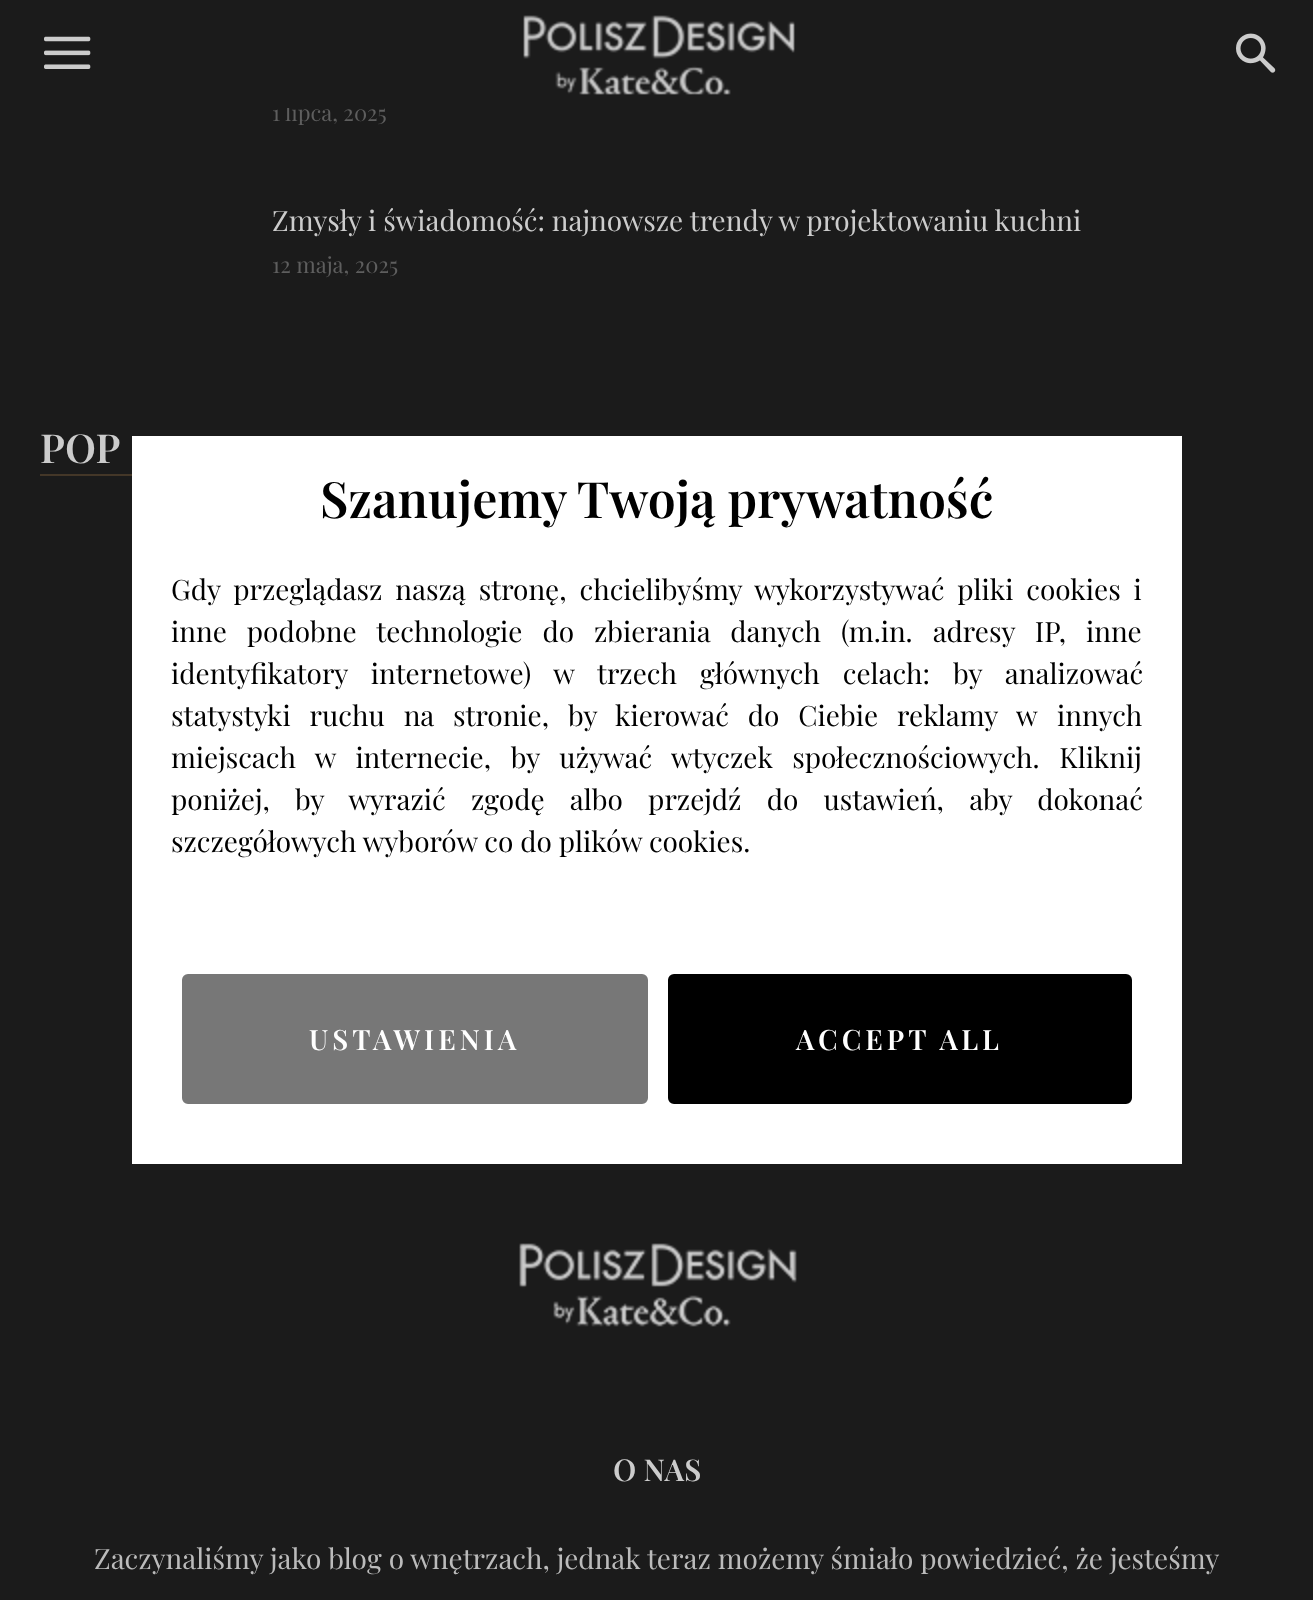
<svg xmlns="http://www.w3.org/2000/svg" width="1313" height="1600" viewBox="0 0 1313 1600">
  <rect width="100%" height="100%" fill="#1b1b1b"/>
  <image x="44" y="36" width="47" height="33" href="img/1.png"/>
  <image x="523" y="15" width="272" height="80" href="img/2.png"/>
  <image x="1236" y="33" width="40" height="40" href="img/3.png"/>
  <path d="M40 474h92v2H40z" fill="#443728"/>
  <image x="519" y="1243" width="278" height="84" href="img/4.png"/>
  <path d="M132 436h1050v728H132z" fill="#fff"/>
  <rect x="184" y="976" width="462" height="126" rx="4" fill="#777" stroke="#777" stroke-width="4"/>
  <rect x="670" y="976" width="460" height="126" rx="4" fill="#000" stroke="#000" stroke-width="4"/>
  <text x="272" y="121" font-family="Playfair Display" font-size="22" fill="#5e5e5e">1 lipca, 2025</text>
  <path d="M285 103h11v5H285z" fill="#1b1b1b"/>
  <text x="272" y="231" font-family="Playfair Display" font-size="28" fill="#ccc">Zmysły i świadomość: najnowsze trendy w projektowaniu kuchni</text>
  <text x="272" y="273" font-family="Playfair Display" font-size="22" fill="#5e5e5e">12 maja, 2025</text>
  <text x="40" y="463" font-family="Playfair Display" font-size="40" font-weight="600" fill="#ccc">POP</text>
  <text x="613" y="1481" font-family="Playfair Display" font-size="30" font-weight="600" fill="#ccc">O NAS</text>
  <text x="94" y="1569" font-family="Playfair Display" font-size="28" fill="#bbb">Zaczynaliśmy jako blog o wnętrzach, jednak teraz możemy śmiało powiedzieć, że jesteśmy</text>
  <text x="320" y="518" font-family="Playfair Display" font-size="50" font-weight="600" fill="#000">Szanujemy Twoją prywatność</text>
  <g font-family="Playfair Display" font-size="28" fill="#000">
    <text x="171" y="600" word-spacing="6">Gdy przeglądasz naszą stronę, chcielibyśmy wykorzystywać pliki cookies i</text>
    <text x="171" y="642" word-spacing="13">inne podobne technologie do zbierania danych (m.in. adresy IP, inne</text>
    <text x="171" y="684" word-spacing="16">identyfikatory internetowe) w</text>
    <text x="597" y="684" word-spacing="16">trzech głównych celach: by analizować</text>
    <text x="171" y="726" word-spacing="12">statystyki ruchu na stronie, by kierować do Ciebie reklamy w</text>
    <text x="1057" y="726">innych</text>
    <text x="171" y="768" word-spacing="12.75">miejscach w internecie, by używać wtyczek społecznościowych. Kliknij</text>
    <text x="171" y="810" word-spacing="18.25">poniżej, by wyrazić</text>
    <text x="471" y="810" word-spacing="18.25">zgodę albo przejdź do ustawień, aby dokonać</text>
    <text x="171" y="852">szczegółowych wyborów co do plików cookies.</text>
  </g>
  <g font-family="Playfair Display" font-size="28" font-weight="600" letter-spacing="4" fill="#fff">
    <text x="309" y="1050">USTAWIENIA</text>
    <text x="796" y="1050">ACCEPT ALL</text>
  </g>
</svg>
